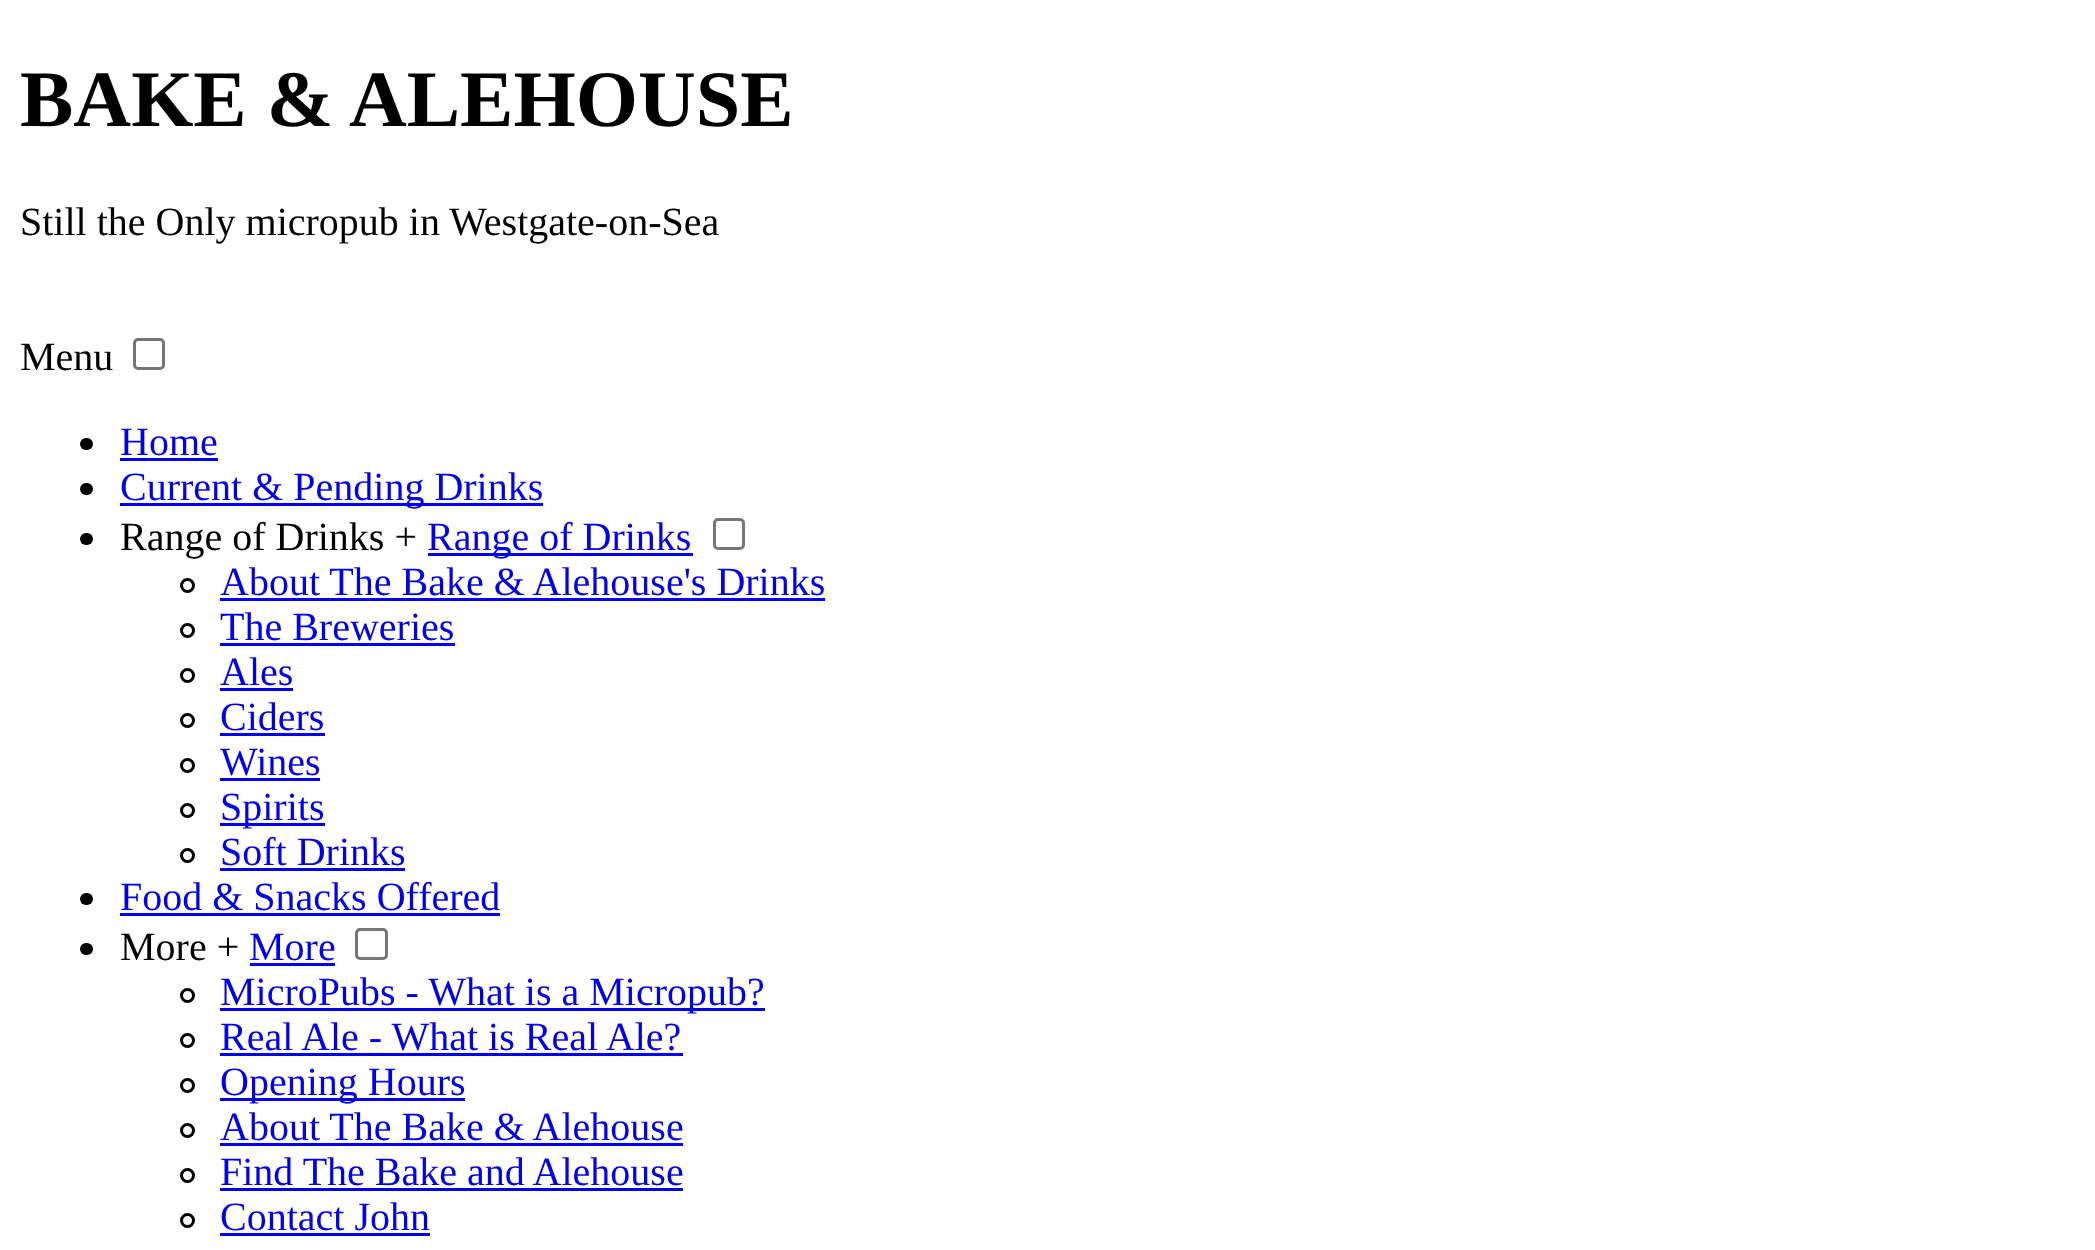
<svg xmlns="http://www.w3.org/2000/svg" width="2095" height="1250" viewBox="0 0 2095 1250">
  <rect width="100%" height="100%" fill="#fff"/>
  <rect x="134.5" y="339.5" width="29" height="29" rx="3.5" fill="none" stroke="#767676" stroke-width="3"/>
  <rect x="80" y="438" width="13" height="12" rx="6" fill="#000"/>
  <path d="M120 458h98v3H120z" fill="#00e"/>
  <rect x="80" y="483" width="13" height="12" rx="6" fill="#000"/>
  <path d="M120 503h423v3H120z" fill="#00e"/>
  <rect x="80" y="533" width="13" height="12" rx="6" fill="#000"/>
  <path d="M428 553h265v3H428z" fill="#00e"/>
  <rect x="714.5" y="519.5" width="29" height="29" rx="3.5" fill="none" stroke="#767676" stroke-width="3"/>
  <circle cx="187.5" cy="585.5" r="6" fill="none" stroke="#000" stroke-width="3"/>
  <path d="M220 598h605v3H220z" fill="#00e"/>
  <circle cx="187.5" cy="630.5" r="6" fill="none" stroke="#000" stroke-width="3"/>
  <path d="M220 643h235v3H220z" fill="#00e"/>
  <circle cx="187.5" cy="675.5" r="6" fill="none" stroke="#000" stroke-width="3"/>
  <path d="M220 688h73v3H220z" fill="#00e"/>
  <circle cx="187.5" cy="720.5" r="6" fill="none" stroke="#000" stroke-width="3"/>
  <path d="M220 733h105v3H220z" fill="#00e"/>
  <circle cx="187.5" cy="765.5" r="6" fill="none" stroke="#000" stroke-width="3"/>
  <path d="M220 778h100v3H220z" fill="#00e"/>
  <circle cx="187.5" cy="810.5" r="6" fill="none" stroke="#000" stroke-width="3"/>
  <path d="M220 823h105v3H220z" fill="#00e"/>
  <circle cx="187.5" cy="855.5" r="6" fill="none" stroke="#000" stroke-width="3"/>
  <path d="M220 868h185v3H220z" fill="#00e"/>
  <rect x="80" y="893" width="13" height="12" rx="6" fill="#000"/>
  <path d="M120 913h380v3H120z" fill="#00e"/>
  <rect x="80" y="943" width="13" height="12" rx="6" fill="#000"/>
  <path d="M250 963h85v3H250z" fill="#00e"/>
  <rect x="356.5" y="929.5" width="30" height="29" rx="3.5" fill="none" stroke="#767676" stroke-width="3"/>
  <circle cx="187.5" cy="995.5" r="6" fill="none" stroke="#000" stroke-width="3"/>
  <path d="M220 1008h545v3H220z" fill="#00e"/>
  <circle cx="187.5" cy="1040.5" r="6" fill="none" stroke="#000" stroke-width="3"/>
  <path d="M220 1053h463v3H220z" fill="#00e"/>
  <circle cx="187.5" cy="1085.5" r="6" fill="none" stroke="#000" stroke-width="3"/>
  <path d="M220 1098h245v3H220z" fill="#00e"/>
  <circle cx="187.5" cy="1130.5" r="6" fill="none" stroke="#000" stroke-width="3"/>
  <path d="M220 1143h463v3H220z" fill="#00e"/>
  <circle cx="187.5" cy="1175.5" r="6" fill="none" stroke="#000" stroke-width="3"/>
  <path d="M220 1188h463v3H220z" fill="#00e"/>
  <circle cx="187.5" cy="1220.5" r="6" fill="none" stroke="#000" stroke-width="3"/>
  <path d="M220 1233h210v3H220z" fill="#00e"/>
  <text x="20" y="126" font-family="Liberation Serif" font-size="80" font-weight="bold" fill="#000">BAKE &amp; ALEHOUSE</text>
  <g font-family="Liberation Serif" font-size="40" fill="#000">
    <text x="20" y="235">Still the Only micropub in Westgate-on-Sea</text>
    <text x="20" y="370">Menu</text>
  </g>
  <g font-family="Liberation Serif" font-size="40" fill="#00e">
    <text x="120" y="455">Home</text>
    <text x="120" y="500">Current &amp; Pending Drinks</text>
  </g>
  <text x="120" y="550" font-family="Liberation Serif" font-size="40" fill="#000">Range of Drinks +</text>
  <g font-family="Liberation Serif" font-size="40" fill="#00e">
    <text x="427" y="550">Range of Drinks</text>
    <text x="220" y="595">About The Bake &amp; Alehouse's Drinks</text>
    <text x="220" y="640">The Breweries</text>
    <text x="220" y="685">Ales</text>
    <text x="220" y="730">Ciders</text>
    <text x="220" y="775">Wines</text>
    <text x="220" y="820">Spirits</text>
    <text x="220" y="865">Soft Drinks</text>
    <text x="120" y="910">Food &amp; Snacks Offered</text>
  </g>
  <text x="120" y="960" font-family="Liberation Serif" font-size="40" fill="#000">More +</text>
  <g font-family="Liberation Serif" font-size="40" fill="#00e">
    <text x="249" y="960">More</text>
    <text x="220" y="1005">MicroPubs - What is a Micropub?</text>
    <text x="220" y="1050">Real Ale - What is Real Ale?</text>
    <text x="220" y="1095">Opening Hours</text>
    <text x="220" y="1140">About The Bake &amp; Alehouse</text>
    <text x="220" y="1185">Find The Bake and Alehouse</text>
    <text x="220" y="1230">Contact John</text>
  </g>
</svg>
